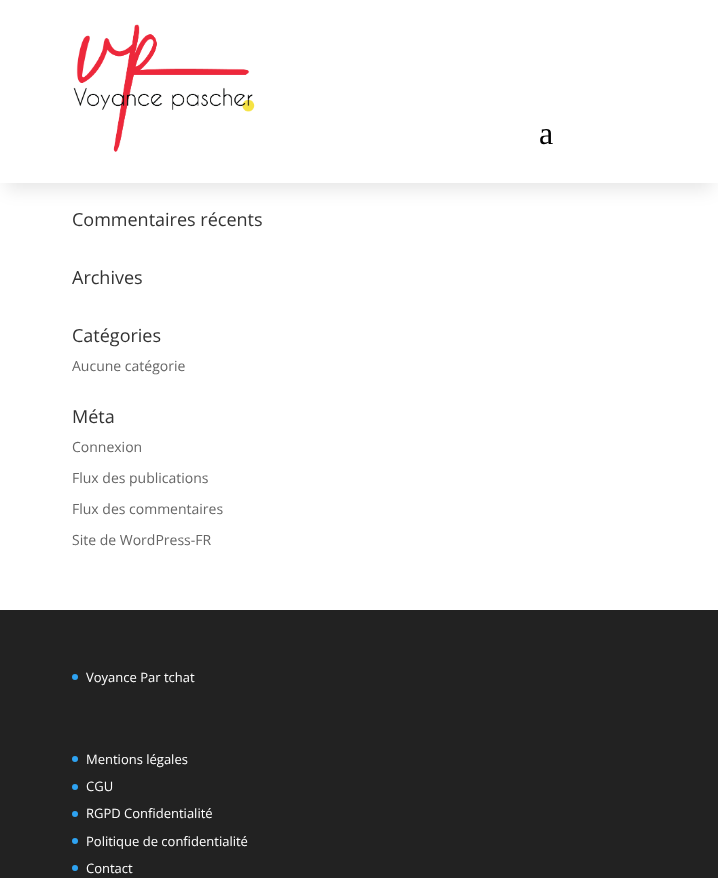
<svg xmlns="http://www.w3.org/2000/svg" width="718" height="878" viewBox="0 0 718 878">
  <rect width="100%" height="100%" fill="#fff"/>
  <path d="M6 -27h706v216H6z" fill="#0000001a" filter="blur(9px)"/>
  <path d="M0 0h718v183H0z" fill="#fff"/>
  <image x="73" y="24" width="182" height="128" href="img/1.png"/>
  <path d="M0 610h718v268H0z" fill="#222"/>
  <circle cx="75" cy="677" r="3" fill="#2ea3f2"/>
  <circle cx="75" cy="759" r="3" fill="#2ea3f2"/>
  <circle cx="75" cy="787" r="3" fill="#2ea3f2"/>
  <circle cx="75" cy="814" r="3" fill="#2ea3f2"/>
  <circle cx="75" cy="841" r="3" fill="#2ea3f2"/>
  <circle cx="75" cy="868" r="3" fill="#2ea3f2"/>
  <text x="539" y="144" font-family="Liberation Serif" font-size="32" fill="#000">a</text>
  <g font-family="Open Sans" font-size="18" fill="#333">
    <text x="72" y="226">Commentaires récents</text>
    <text x="72" y="284">Archives</text>
    <text x="72" y="342">Catégories</text>
  </g>
  <text x="72" y="371" font-family="Open Sans" font-size="14" fill="#666">Aucune catégorie</text>
  <text x="72" y="423" font-family="Open Sans" font-size="18" fill="#333">Méta</text>
  <g font-family="Open Sans" font-size="14" fill="#666">
    <text x="72" y="452">Connexion</text>
    <text x="72" y="483">Flux des publications</text>
    <text x="72" y="514">Flux des commentaires</text>
    <text x="72" y="545">Site de WordPress-FR</text>
  </g>
  <g font-family="Open Sans" font-size="13" fill="#fff">
    <text x="86" y="682">Voyance Par tchat</text>
    <text x="86" y="764">Mentions légales</text>
    <text x="86" y="791">CGU</text>
    <text x="86" y="818">RGPD Confidentialité</text>
    <text x="86" y="846">Politique de confidentialité</text>
    <text x="86" y="873">Contact</text>
  </g>
</svg>
